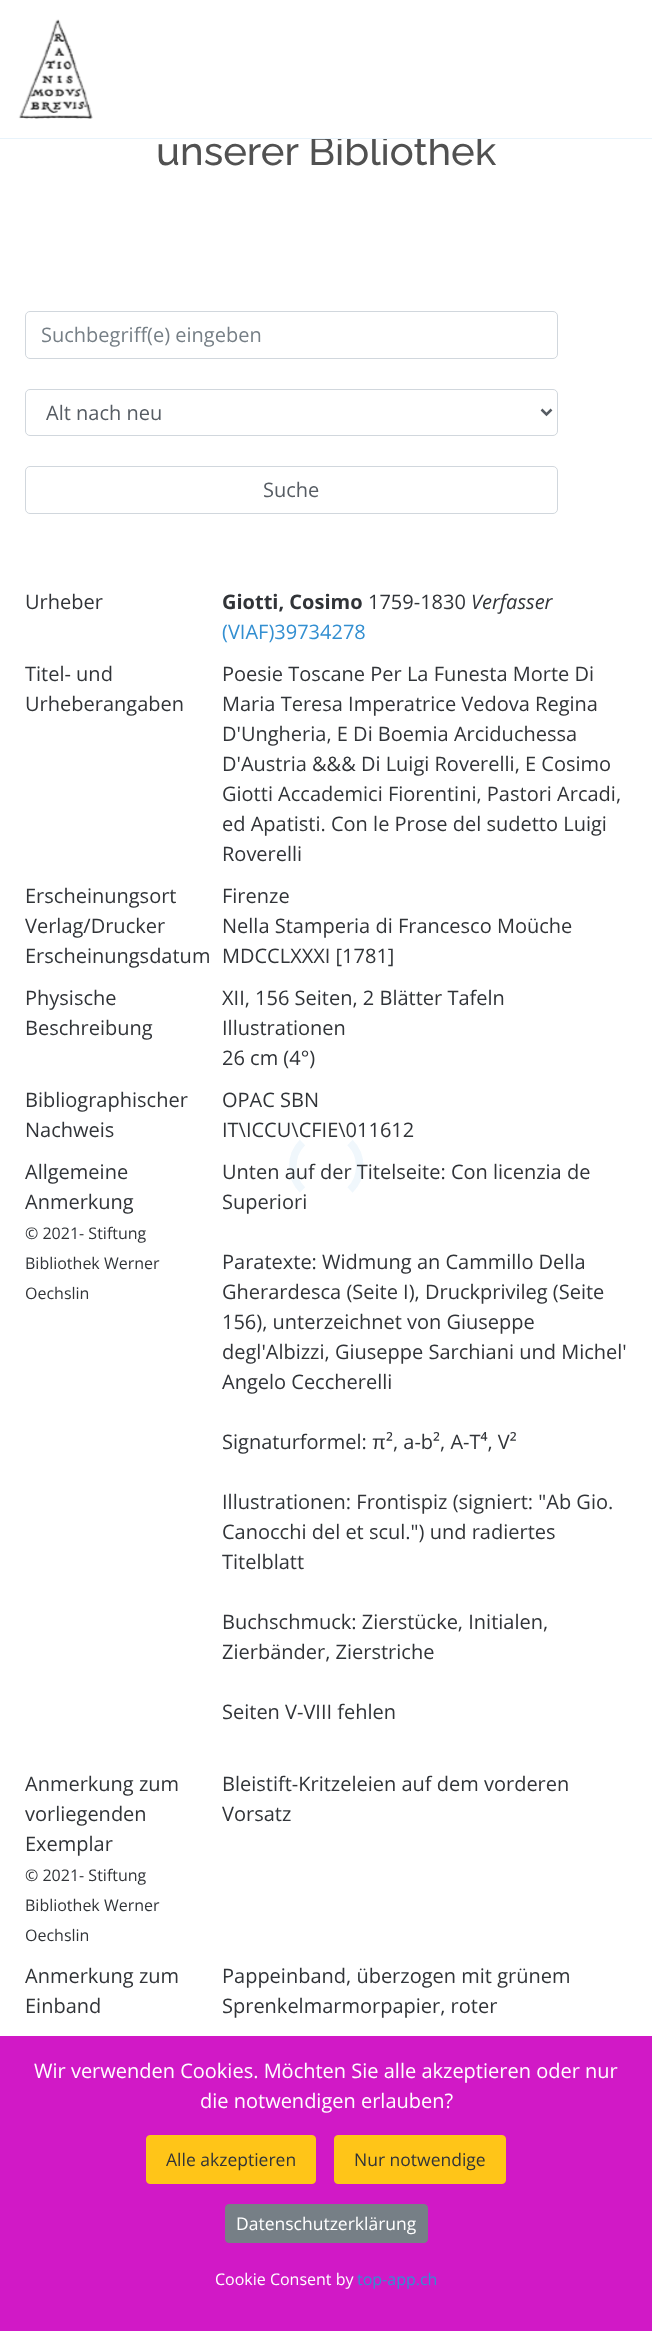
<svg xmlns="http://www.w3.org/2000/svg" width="652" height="2331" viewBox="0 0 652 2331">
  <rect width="100%" height="100%" fill="#fff"/>
  <image x="18" y="19" width="75" height="100" href="img/1.png"/>
  <rect x="25.5" y="311.5" width="532" height="47" rx="4.5" fill="none" stroke="#d1d7dd"/>
  <rect x="25.5" y="389.5" width="532" height="46" rx="4.5" fill="none" stroke="#d1d7dd"/>
  <path d="M541.5 409.5L546.5 414.5L551.5 409.5" fill="none" stroke="#565c63" stroke-width="2.5"/>
  <rect x="25.5" y="466.5" width="532" height="47" rx="4.5" fill="none" stroke="#d1d7dd"/>
  <path d="M302.5 1142.5C315.5 1129.5 337 1129.5 350 1142.5" fill="none" stroke="#ffffff12" stroke-width="7.5"/>
  <path d="M350 1142.5C363 1155.5 363 1177 350 1190" fill="none" stroke="#2487ce12" stroke-width="7.5"/>
  <path d="M350 1190C337 1203 315.5 1203 302.5 1190" fill="none" stroke="#ffffff12" stroke-width="7.5"/>
  <path d="M302.5 1190C289.5 1177 289.5 1155.5 302.5 1142.5" fill="none" stroke="#2487ce12" stroke-width="7.5"/>
  <path d="M0 2036h652v295H0z" fill="#d119c6"/>
  <rect x="146.5" y="2135.5" width="169" height="48" rx="3.5" fill="#ffc518" stroke="#ffc518"/>
  <rect x="334.5" y="2135.5" width="171" height="48" rx="3.5" fill="#ffc518" stroke="#ffc518"/>
  <rect x="225.5" y="2204.5" width="202" height="38" rx="3.5" fill="#767f86" stroke="#767f86"/>
  <text x="156" y="165" font-family="Raleway" font-size="40" font-weight="500" fill="#515151">unserer Bibliothek</text>
  <path d="M0 138h652v1H0z" fill="#e8f3fb"/>
  <path d="M311 135h171v3H311z" fill="#fff"/>
  <text x="41" y="342" font-family="Open Sans" font-size="20" fill="#767f86">Suchbegriff(e) eingeben</text>
  <g font-family="Open Sans" font-size="20" fill="#565c63">
    <text x="46" y="420">Alt nach neu</text>
    <text x="263" y="497">Suche</text>
  </g>
  <text x="25" y="609" font-family="Open Sans" font-size="20" fill="#313438">Urheber</text>
  <text x="222" y="609" font-family="Open Sans" font-size="20" font-weight="bold" fill="#313438">Giotti, Cosimo</text>
  <text x="368" y="609" font-family="Open Sans" font-size="20" fill="#313438">1759-1830</text>
  <text x="471" y="609" font-family="Open Sans" font-size="20" font-style="italic" fill="#313438">Verfasser</text>
  <text x="222" y="639" font-family="Open Sans" font-size="20" fill="#338fd1">(VIAF)39734278</text>
  <g font-family="Open Sans" font-size="20" fill="#313438">
    <text x="25" y="681">Titel- und</text>
    <text x="25" y="711">Urheberangaben</text>
    <text x="222" y="681">Poesie Toscane Per La Funesta Morte Di</text>
    <text x="222" y="711">Maria Teresa Imperatrice Vedova Regina</text>
    <text x="222" y="741">D'Ungheria, E Di Boemia Arciduchessa</text>
    <text x="222" y="771">D'Austria &amp;&amp;&amp; Di Luigi Roverelli, E Cosimo</text>
    <text x="222" y="801">Giotti Accademici Fiorentini, Pastori Arcadi,</text>
    <text x="222" y="831">ed Apatisti. Con le Prose del sudetto Luigi</text>
    <text x="222" y="861">Roverelli</text>
    <text x="25" y="903">Erscheinungsort</text>
    <text x="25" y="933">Verlag/Drucker</text>
    <text x="25" y="963">Erscheinungsdatum</text>
    <text x="222" y="903">Firenze</text>
    <text x="222" y="933">Nella Stamperia di Francesco Moüche</text>
    <text x="222" y="963">MDCCLXXXI [1781]</text>
    <text x="25" y="1005">Physische</text>
    <text x="25" y="1035">Beschreibung</text>
    <text x="222" y="1005">XII, 156 Seiten, 2 Blätter Tafeln</text>
    <text x="222" y="1035">Illustrationen</text>
    <text x="222" y="1065">26 cm (4°)</text>
    <text x="25" y="1107">Bibliographischer</text>
    <text x="25" y="1137">Nachweis</text>
    <text x="222" y="1107">OPAC SBN</text>
    <text x="222" y="1137">IT\ICCU\CFIE\011612</text>
    <text x="25" y="1179">Allgemeine</text>
    <text x="25" y="1209">Anmerkung</text>
  </g>
  <g font-family="Open Sans" font-size="16" fill="#313438">
    <text x="25" y="1239">© 2021- Stiftung</text>
    <text x="25" y="1269">Bibliothek Werner</text>
    <text x="25" y="1299">Oechslin</text>
  </g>
  <g font-family="Open Sans" font-size="20" fill="#313438">
    <text x="222" y="1179">Unten auf der Titelseite: Con licenzia de</text>
    <text x="222" y="1209">Superiori</text>
    <text x="222" y="1269">Paratexte: Widmung an Cammillo Della</text>
    <text x="222" y="1299">Gherardesca (Seite I), Druckprivileg (Seite</text>
    <text x="222" y="1329">156), unterzeichnet von Giuseppe</text>
    <text x="222" y="1359">degl'Albizzi, Giuseppe Sarchiani und Michel'</text>
    <text x="222" y="1389">Angelo Ceccherelli</text>
    <text x="222" y="1449">Signaturformel:</text>
  </g>
  <text x="372" y="1449" font-family="Liberation Sans" font-size="20" fill="#313438">π</text>
  <g font-family="Open Sans" font-size="20" fill="#313438">
    <text x="386" y="1449">², a-b², A-T⁴, V²</text>
    <text x="222" y="1509">Illustrationen: Frontispiz (signiert: "Ab Gio.</text>
    <text x="222" y="1539">Canocchi del et scul.") und radiertes</text>
    <text x="222" y="1569">Titelblatt</text>
    <text x="222" y="1629">Buchschmuck: Zierstücke, Initialen,</text>
    <text x="222" y="1659">Zierbänder, Zierstriche</text>
    <text x="222" y="1719">Seiten V-VIII fehlen</text>
    <text x="25" y="1791">Anmerkung zum</text>
    <text x="25" y="1821">vorliegenden</text>
    <text x="25" y="1851">Exemplar</text>
  </g>
  <g font-family="Open Sans" font-size="16" fill="#313438">
    <text x="25" y="1881">© 2021- Stiftung</text>
    <text x="25" y="1911">Bibliothek Werner</text>
    <text x="25" y="1941">Oechslin</text>
  </g>
  <g font-family="Open Sans" font-size="20" fill="#313438">
    <text x="222" y="1791">Bleistift-Kritzeleien auf dem vorderen</text>
    <text x="222" y="1821">Vorsatz</text>
    <text x="25" y="1983">Anmerkung zum</text>
    <text x="25" y="2013">Einband</text>
    <text x="222" y="1983">Pappeinband, überzogen mit grünem</text>
    <text x="222" y="2013">Sprenkelmarmorpapier, roter</text>
  </g>
  <g font-family="Open Sans" font-size="20" fill="#fff">
    <text x="34" y="2078">Wir verwenden Cookies. Möchten Sie alle akzeptieren oder nur</text>
    <text x="200" y="2108">die notwendigen erlauben?</text>
  </g>
  <g font-family="Open Sans" font-size="17.5" fill="#313438">
    <text x="166" y="2166">Alle akzeptieren</text>
    <text x="354" y="2166">Nur notwendige</text>
  </g>
  <text x="236" y="2230" font-family="Open Sans" font-size="17.5" fill="#fff">Datenschutzerklärung</text>
  <text x="215" y="2285" font-family="Open Sans" font-size="16" fill="#fff">Cookie Consent by</text>
  <text x="357" y="2285" font-family="Open Sans" font-size="16" fill="#338fd1">top-app.ch</text>
</svg>
